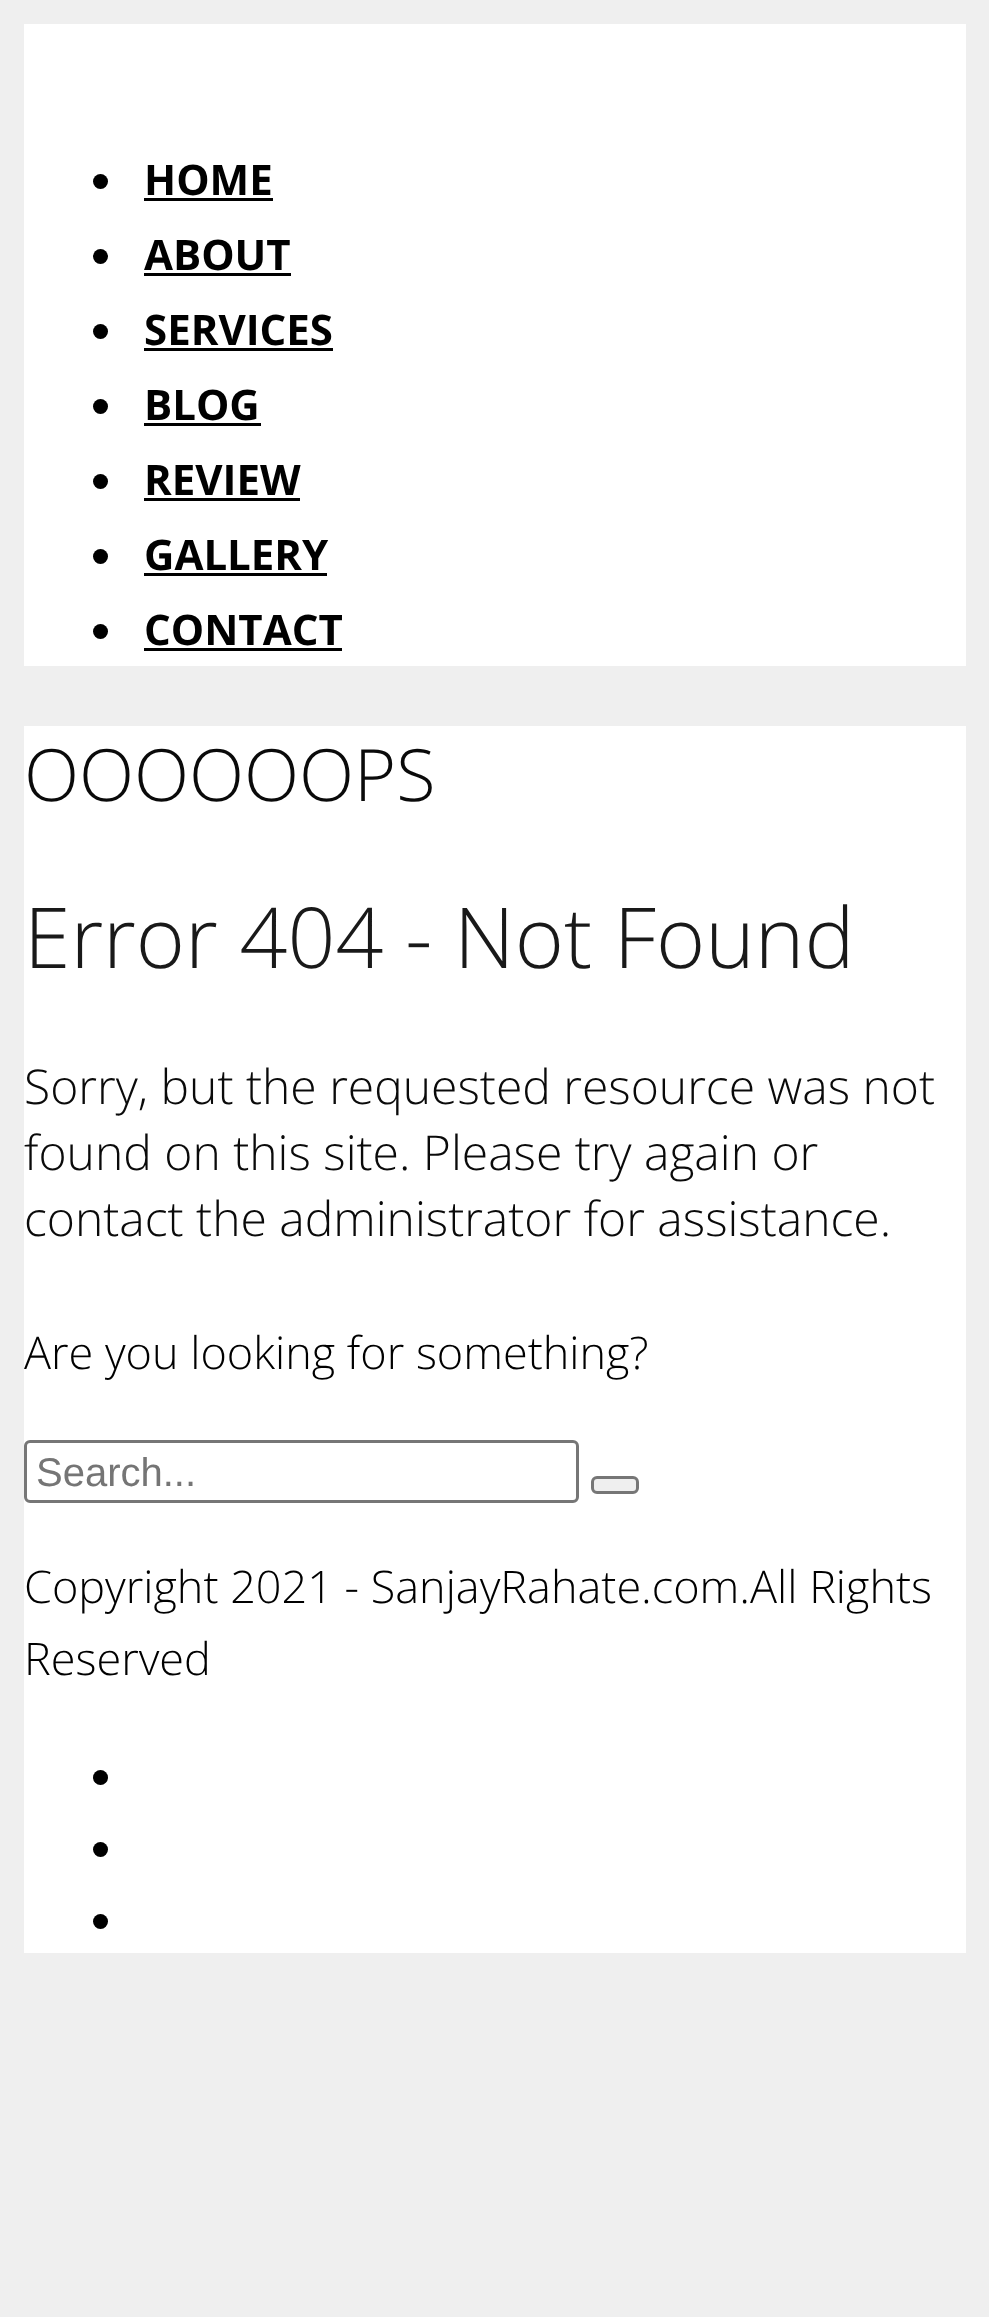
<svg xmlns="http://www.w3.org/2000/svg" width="989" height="2317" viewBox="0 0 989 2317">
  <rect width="100%" height="100%" fill="#efefef"/>
  <path d="M24 24h942v642H24z" fill="#fff"/>
  <circle cx="100.5" cy="181.5" r="7.5" fill="#000"/>
  <path d="M144 198h129v3H144z" fill="#000"/>
  <circle cx="100.5" cy="256.5" r="7.5" fill="#000"/>
  <path d="M144 273h147v3H144z" fill="#000"/>
  <circle cx="100.5" cy="331.5" r="7.5" fill="#000"/>
  <path d="M144 348h189v3H144z" fill="#000"/>
  <circle cx="100.5" cy="406.5" r="7.5" fill="#000"/>
  <path d="M144 423h117v3H144z" fill="#000"/>
  <circle cx="100.5" cy="481.5" r="7.5" fill="#000"/>
  <path d="M144 498h156v3H144z" fill="#000"/>
  <circle cx="100.5" cy="556.5" r="7.5" fill="#000"/>
  <path d="M144 573h183v3H144z" fill="#000"/>
  <circle cx="100.5" cy="631.5" r="7.5" fill="#000"/>
  <path d="M144 648h198v3H144z" fill="#000"/>
  <path d="M24 726h942v1227H24z" fill="#fff"/>
  <rect x="25.5" y="1441.5" width="552" height="60" rx="4.5" fill="none" stroke="#767676" stroke-width="3"/>
  <rect x="592.5" y="1477.5" width="45" height="15" rx="4.5" fill="#efefef" stroke="#767676" stroke-width="3"/>
  <circle cx="100.5" cy="1777.5" r="7.5" fill="#000"/>
  <circle cx="100.5" cy="1849.5" r="7.5" fill="#000"/>
  <circle cx="100.5" cy="1921.5" r="7.5" fill="#000"/>
  <g font-family="Open Sans" font-size="42" font-weight="bold" fill="#000">
    <text x="144" y="195">HOME</text>
    <text x="144" y="270">ABOUT</text>
    <text x="144" y="345">SERVICES</text>
    <text x="144" y="420">BLOG</text>
    <text x="144" y="495">REVIEW</text>
    <text x="144" y="570">GALLERY</text>
    <text x="144" y="645">CONTACT</text>
  </g>
  <text x="24" y="801" font-family="Open Sans" font-size="72" font-weight="300" fill="#0a0a0a">OOOOOOPS</text>
  <text x="24" y="968" font-family="Open Sans" font-size="84" font-weight="300" fill="#191919">Error 404 - Not Found</text>
  <g font-family="Open Sans" font-size="48" font-weight="300" fill="#0a0a0a">
    <text x="24" y="1104">Sorry, but the requested resource was not</text>
    <text x="24" y="1170">found on this site. Please try again or</text>
    <text x="24" y="1236">contact the administrator for assistance.</text>
  </g>
  <text x="24" y="1369" font-family="Open Sans" font-size="45" font-weight="300" fill="#000">Are you looking for something?</text>
  <text x="36" y="1486" font-family="Liberation Sans" font-size="40" fill="#757575">Search...</text>
  <g font-family="Open Sans" font-size="45" font-weight="300" fill="#000">
    <text x="24" y="1603">Copyright 2021 - SanjayRahate.com.All Rights</text>
    <text x="24" y="1675">Reserved</text>
  </g>
</svg>
